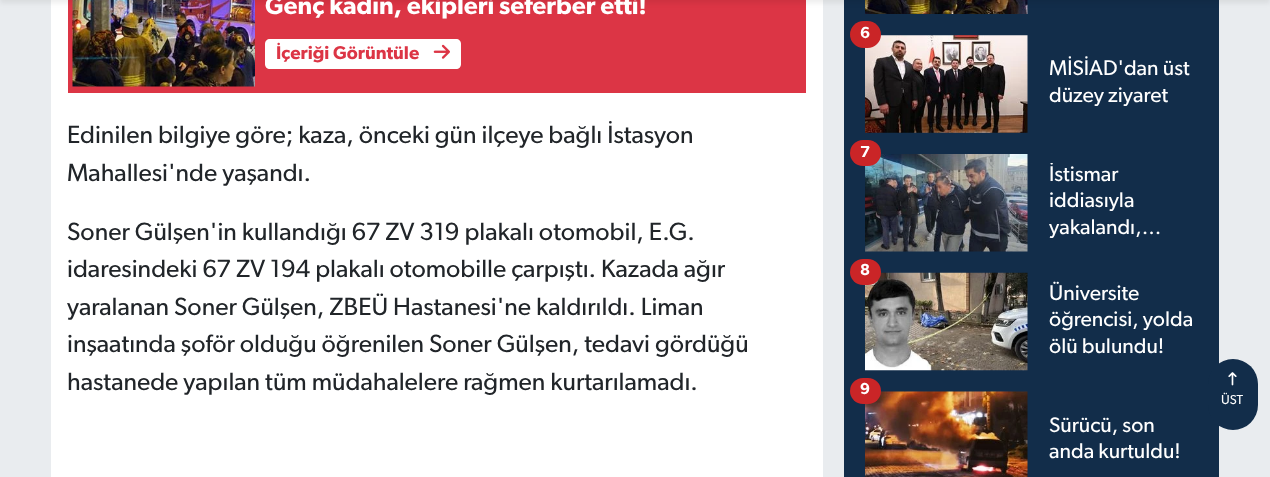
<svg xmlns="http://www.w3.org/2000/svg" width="1270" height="477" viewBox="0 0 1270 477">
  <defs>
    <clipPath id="clip1"><path d="M1049 163h149v78H1049z"/></clipPath>
  </defs>
  <rect width="100%" height="100%" fill="#e9ecef"/>
  <path d="M51 0h772v477H51z" fill="#fff"/>
  <path d="M68 0h738v93H68z" fill="#dc3545"/>
  <image x="72" y="0" width="183" height="87" href="img/1.png"/>
  <path d="M844 0h375v477H844z" fill="#122d4a"/>
  <image x="865" y="0" width="163" height="14" href="img/3.png"/>
  <path d="M0 -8h1270v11H0z" fill="#00000012" filter="blur(2.5px)"/>
  <path d="M270 39H424V69H270C267 69 265 67 265 64V44C265 41 267 39 270 39Z" fill="#fff"/>
  <path d="M424 39H456C459 39 461 41 461 44V64C461 67 459 69 456 69H424Z" fill="#fff"/>
  <image x="433" y="44" width="17" height="15" href="img/2.png"/>
  <image x="865" y="35" width="163" height="98" href="img/4.png"/>
  <rect x="850" y="21" width="31" height="27" rx="13.5" fill="#ca2527"/>
  <image x="865" y="154" width="163" height="98" href="img/5.png"/>
  <rect x="850" y="140" width="31" height="26" rx="13" fill="#ca2527"/>
  <image x="865" y="272" width="163" height="99" href="img/6.png"/>
  <rect x="850" y="259" width="31" height="26" rx="13" fill="#ca2527"/>
  <image x="865" y="391" width="163" height="86" href="img/7.png"/>
  <rect x="850" y="378" width="31" height="26" rx="13" fill="#ca2527"/>
  <rect x="1208" y="359" width="50" height="71" rx="25" fill="#122d4a"/>
  <image x="1228" y="372" width="9" height="14" href="img/8.png"/>
  <text x="265" y="14" font-family="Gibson" font-size="25" font-weight="600" fill="#fff">Genç kadın, ekipleri seferber etti!</text>
  <text x="276" y="59" font-family="Gibson" font-size="18.5" font-weight="600" fill="#dc3545">İçeriği Görüntüle</text>
  <g font-family="Gibson" font-size="25" fill="#212529">
    <text x="67" y="143">Edinilen bilgiye göre; kaza, önceki gün ilçeye bağlı İstasyon</text>
    <text x="67" y="181">Mahallesi'nde yaşandı.</text>
    <text x="67" y="240">Soner Gülşen'in kullandığı 67 ZV 319 plakalı otomobil, E.G.</text>
    <text x="67" y="277">idaresindeki 67 ZV 194 plakalı otomobille çarpıştı. Kazada ağır</text>
    <text x="67" y="315">yaralanan Soner Gülşen, ZBEÜ Hastanesi'ne kaldırıldı. Liman</text>
    <text x="67" y="352">inşaatında şoför olduğu öğrenilen Soner Gülşen, tedavi gördüğü</text>
    <text x="67" y="390">hastanede yapılan tüm müdahalelere rağmen kurtarılamadı.</text>
  </g>
  <text x="860" y="38" font-family="Gibson" font-size="16" font-weight="600" fill="#fff">6</text>
  <g font-family="Gibson" font-size="21.25" fill="#fff">
    <text x="1049" y="75">MİSİAD'dan üst</text>
    <text x="1049" y="102">düzey ziyaret</text>
  </g>
  <text x="860" y="157" font-family="Gibson" font-size="16" font-weight="600" fill="#fff">7</text>
  <g clip-path="url(#clip1)">
    <text x="1049" y="181" font-family="Gibson" font-size="21.25" fill="#fff">İstismar</text>
  </g>
  <g font-family="Gibson" font-size="21.25" fill="#fff">
    <text x="1049" y="207">iddiasıyla</text>
    <text x="1049" y="234">yakalandı,…</text>
  </g>
  <text x="860" y="275" font-family="Gibson" font-size="16" font-weight="600" fill="#fff">8</text>
  <g font-family="Gibson" font-size="21.25" fill="#fff">
    <text x="1049" y="300">Üniversite</text>
    <text x="1049" y="326">öğrencisi, yolda</text>
    <text x="1049" y="353">ölü bulundu!</text>
  </g>
  <text x="860" y="394" font-family="Gibson" font-size="16" font-weight="600" fill="#fff">9</text>
  <g font-family="Gibson" font-size="21.25" fill="#fff">
    <text x="1049" y="432">Sürücü, son</text>
    <text x="1049" y="458">anda kurtuldu!</text>
  </g>
  <text x="1221" y="404" font-family="Gibson" font-size="13" fill="#fff">ÜST</text>
</svg>
